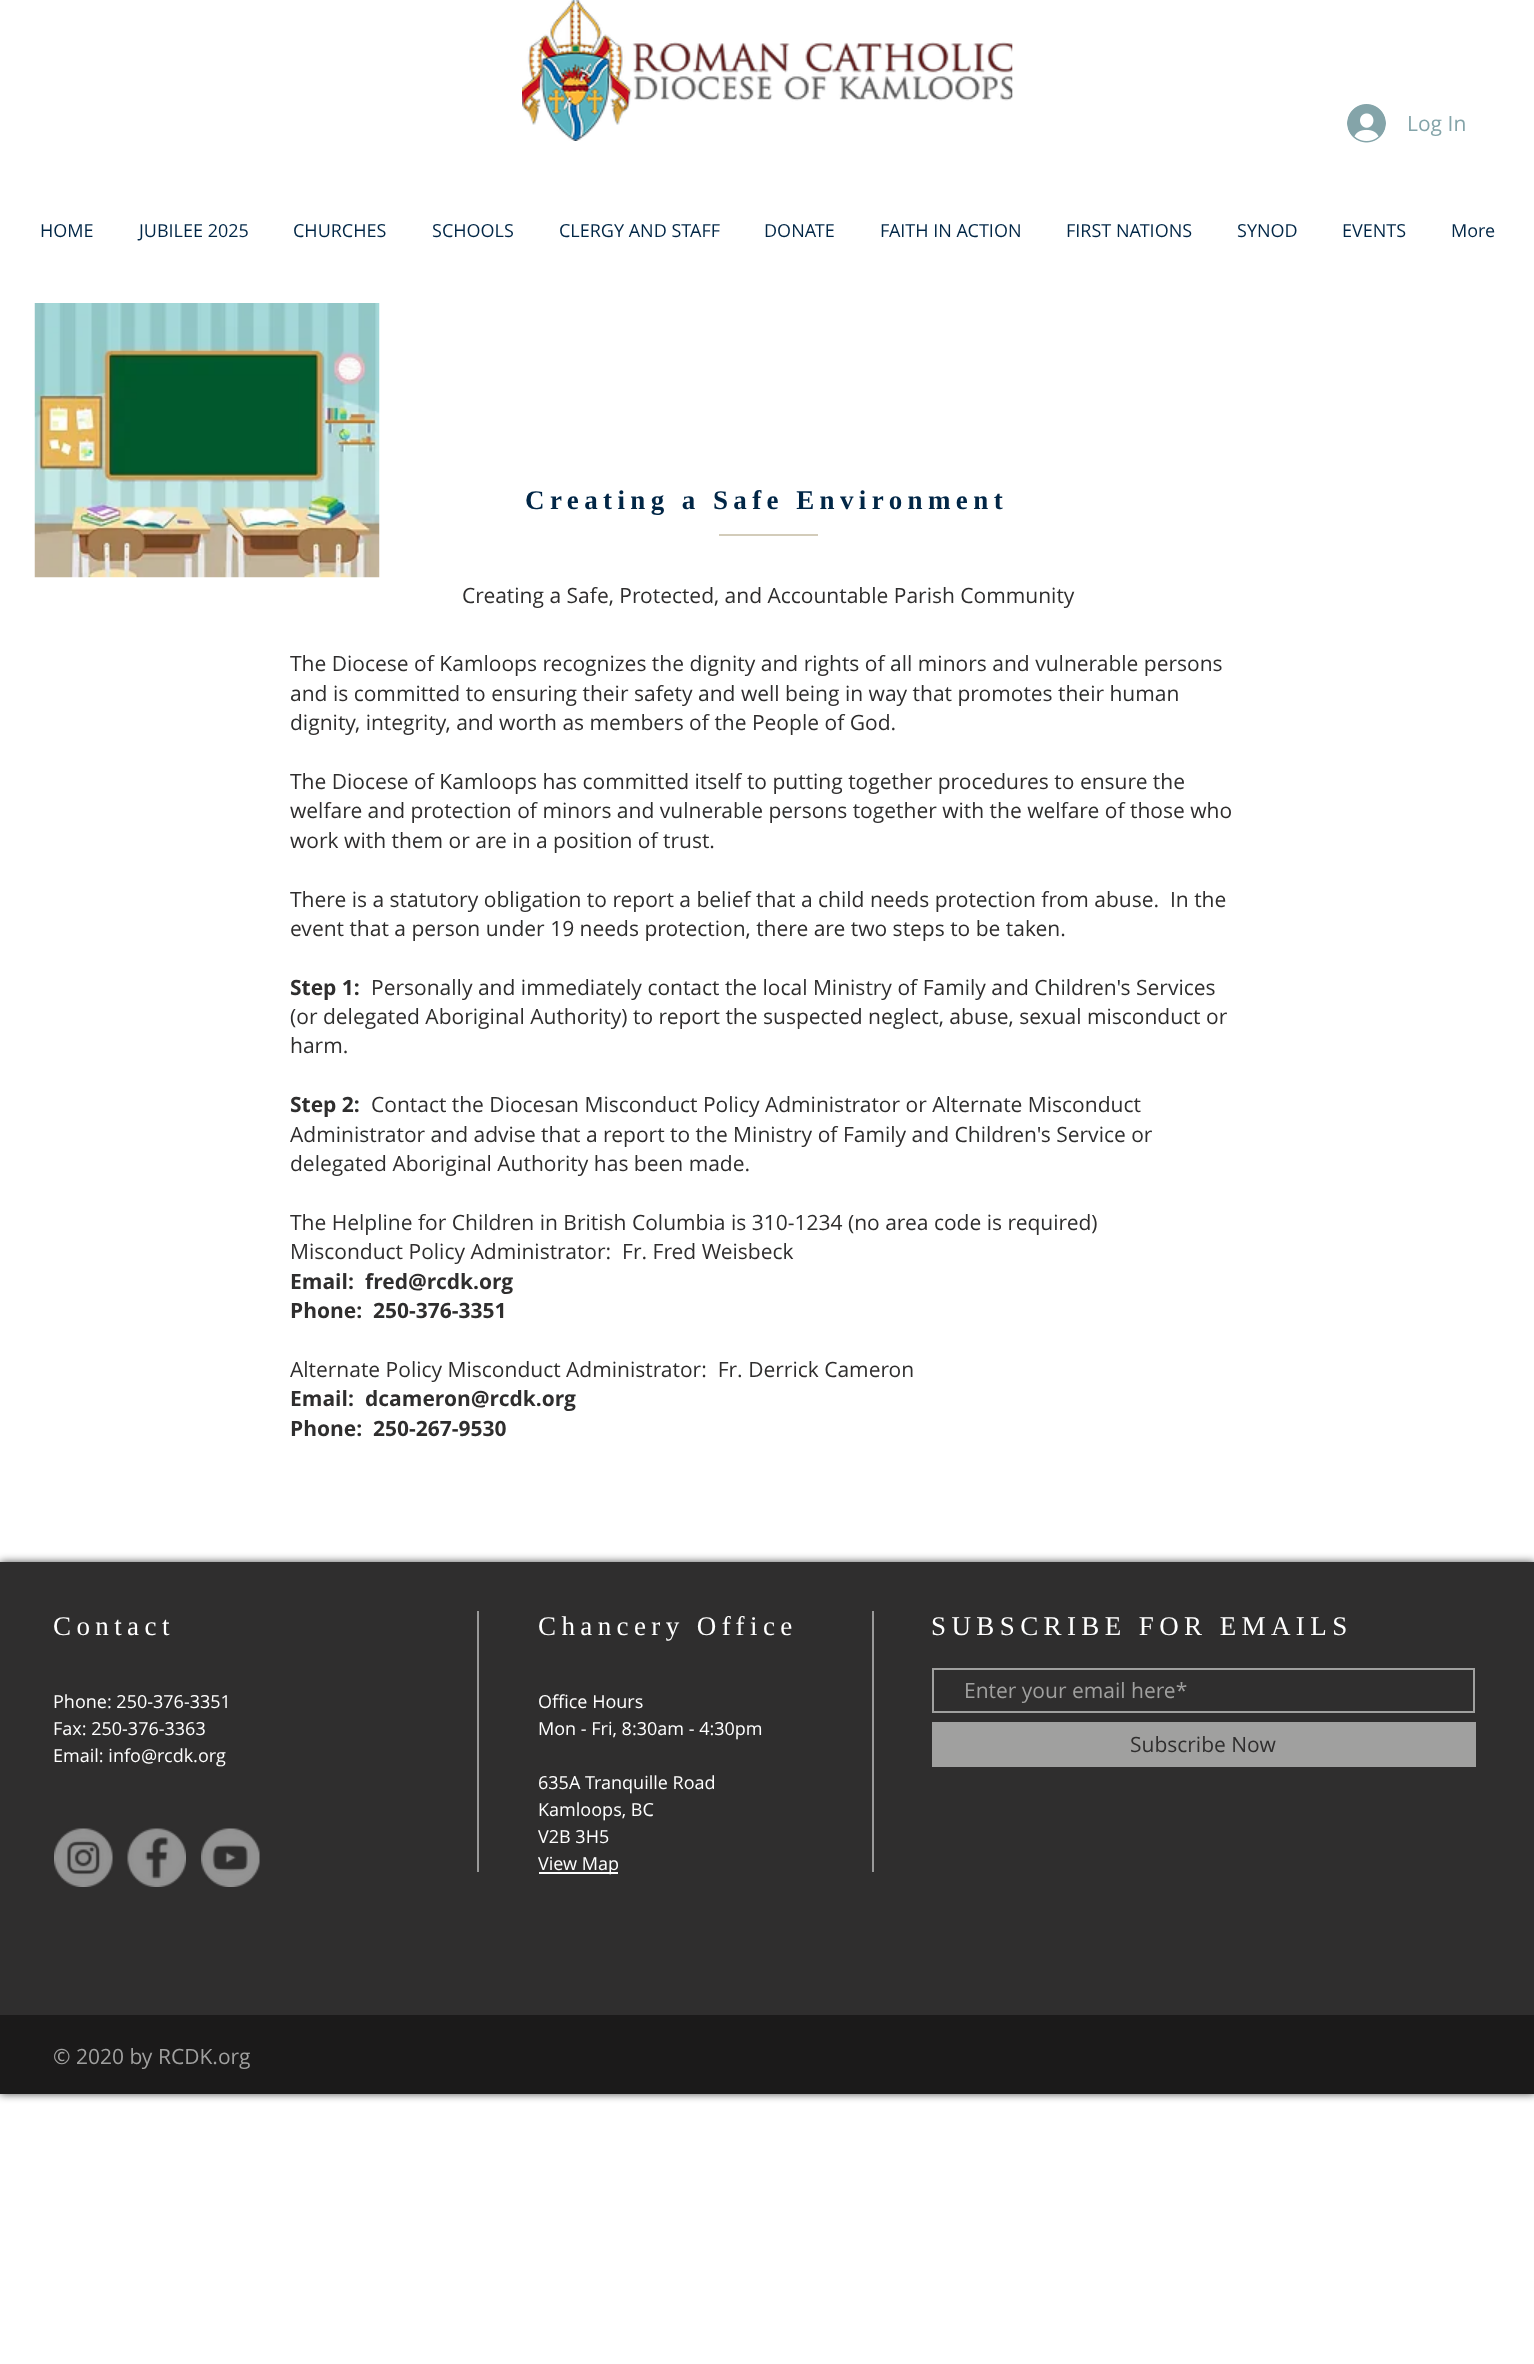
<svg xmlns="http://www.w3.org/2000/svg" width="1534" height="2364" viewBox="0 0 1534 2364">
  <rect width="100%" height="100%" fill="#fff"/>
  <image x="522" y="0" width="491" height="141" href="img/1.png"/>
  <image x="1347" y="104" width="39" height="39" href="img/2.png"/>
  <image x="34" y="303" width="346" height="275" href="img/3.png"/>
  <path d="M719 534h99v2H719z" fill="#d3ccba"/>
  <path d="M0 1562h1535v532H0z" fill="#000000b3" filter="blur(4px)"/>
  <path d="M0 1562h1534v453H0z" fill="#2f2e2e"/>
  <path d="M477 1611h2v261H477z" fill="#999"/>
  <path d="M872 1611h2v261H872z" fill="#999"/>
  <path d="M933 1669h541v43H933z" fill="none" stroke="#a0a09f" stroke-width="2"/>
  <path d="M932 1722h544v45H932z" fill="#a0a09f"/>
  <path d="M539 1872h79v2H539z" fill="#fff"/>
  <image x="54" y="1828" width="59" height="59" href="img/4.png"/>
  <image x="127" y="1828" width="59" height="59" href="img/5.png"/>
  <image x="201" y="1828" width="59" height="59" href="img/6.png"/>
  <path d="M0 2015h1534v79H0z" fill="#1b1a1a"/>
  <text x="1407" y="131" font-family="Open Sans" font-size="21" fill="#84a4a9">Log In</text>
  <g font-family="Open Sans" font-size="18" fill="#012646">
    <text x="40" y="237">HOME</text>
    <text x="139" y="237">JUBILEE 2025</text>
    <text x="293" y="237">CHURCHES</text>
    <text x="432" y="237">SCHOOLS</text>
    <text x="559" y="237">CLERGY AND STAFF</text>
    <text x="764" y="237">DONATE</text>
    <text x="880" y="237">FAITH IN ACTION</text>
    <text x="1066" y="237">FIRST NATIONS</text>
    <text x="1237" y="237">SYNOD</text>
    <text x="1342" y="237">EVENTS</text>
    <text x="1451" y="237">More</text>
  </g>
  <text x="525" y="509" font-family="Liberation Serif" font-size="27" font-weight="bold" letter-spacing="5.4" fill="#012646">Creating a Safe Environment</text>
  <g font-family="Open Sans" font-size="21" fill="#2f2e2e">
    <text x="462" y="603">Creating a Safe, Protected, and Accountable Parish Community</text>
    <text x="290" y="671">The Diocese of Kamloops recognizes the dignity and rights of all minors and vulnerable persons</text>
    <text x="290" y="701">and is committed to ensuring their safety and well being in way that promotes their human</text>
    <text x="290" y="730">dignity, integrity, and worth as members of the People of God.</text>
    <text x="290" y="789">The Diocese of Kamloops has committed itself to putting together procedures to ensure the</text>
    <text x="290" y="818">welfare and protection of minors and vulnerable persons together with the welfare of those who</text>
    <text x="290" y="848">work with them or are in a position of trust.</text>
    <text x="290" y="907" xml:space="preserve">There is a statutory obligation to report a belief that a child needs protection from abuse.  In the</text>
    <text x="290" y="936">event that a person under 19 needs protection, there are two steps to be taken.</text>
  </g>
  <text x="290" y="995" font-family="Open Sans" font-size="21" font-weight="bold" fill="#2f2e2e">Step 1:</text>
  <g font-family="Open Sans" font-size="21" fill="#2f2e2e">
    <text x="371" y="995">Personally and immediately contact the local Ministry of Family and Children's Services</text>
    <text x="290" y="1024">(or delegated Aboriginal Authority) to report the suspected neglect, abuse, sexual misconduct or</text>
    <text x="290" y="1053">harm.</text>
  </g>
  <text x="290" y="1112" font-family="Open Sans" font-size="21" font-weight="bold" fill="#2f2e2e">Step 2:</text>
  <g font-family="Open Sans" font-size="21" fill="#2f2e2e">
    <text x="371" y="1112">Contact the Diocesan Misconduct Policy Administrator or Alternate Misconduct</text>
    <text x="290" y="1142">Administrator and advise that a report to the Ministry of Family and Children's Service or</text>
    <text x="290" y="1171">delegated Aboriginal Authority has been made.</text>
    <text x="290" y="1230">The Helpline for Children in British Columbia is 310-1234 (no area code is required)</text>
    <text x="290" y="1259" xml:space="preserve">Misconduct Policy Administrator:  Fr. Fred Weisbeck</text>
  </g>
  <g font-family="Open Sans" font-size="21" font-weight="bold" fill="#2f2e2e">
    <text x="290" y="1289">Email:</text>
    <text x="365" y="1289">fred@rcdk.org</text>
    <text x="290" y="1318">Phone:</text>
    <text x="373" y="1318">250-376-3351</text>
  </g>
  <text x="290" y="1377" font-family="Open Sans" font-size="21" fill="#2f2e2e" xml:space="preserve">Alternate Policy Misconduct Administrator:  Fr. Derrick Cameron</text>
  <g font-family="Open Sans" font-size="21" font-weight="bold" fill="#2f2e2e">
    <text x="290" y="1406">Email:</text>
    <text x="365" y="1406">dcameron@rcdk.org</text>
    <text x="290" y="1436" xml:space="preserve">Phone:  250-267-9530</text>
  </g>
  <g font-family="Liberation Serif" font-size="27" letter-spacing="5.4" fill="#fff">
    <text x="53" y="1635">Contact</text>
    <text x="538" y="1635">Chancery Office</text>
    <text x="931" y="1635">SUBSCRIBE FOR EMAILS</text>
  </g>
  <text x="964" y="1698" font-family="Open Sans" font-size="21" fill="#a0a09f">Enter your email here*</text>
  <text x="1130" y="1752" font-family="Open Sans" font-size="21" fill="#2f2e2e">Subscribe Now</text>
  <g font-family="Open Sans" font-size="18" fill="#fff">
    <text x="53" y="1708">Phone: 250-376-3351</text>
    <text x="53" y="1735">Fax: 250-376-3363</text>
    <text x="53" y="1762">Email: info@rcdk.org</text>
    <text x="538" y="1708">Office Hours</text>
    <text x="538" y="1735">Mon - Fri, 8:30am - 4:30pm</text>
    <text x="538" y="1789">635A Tranquille Road</text>
    <text x="538" y="1816">Kamloops, BC</text>
    <text x="538" y="1843">V2B 3H5</text>
    <text x="538" y="1870">View Map</text>
  </g>
  <text x="53" y="2064" font-family="Open Sans" font-size="21" fill="#a0a09f">© 2020 by RCDK.org</text>
</svg>
